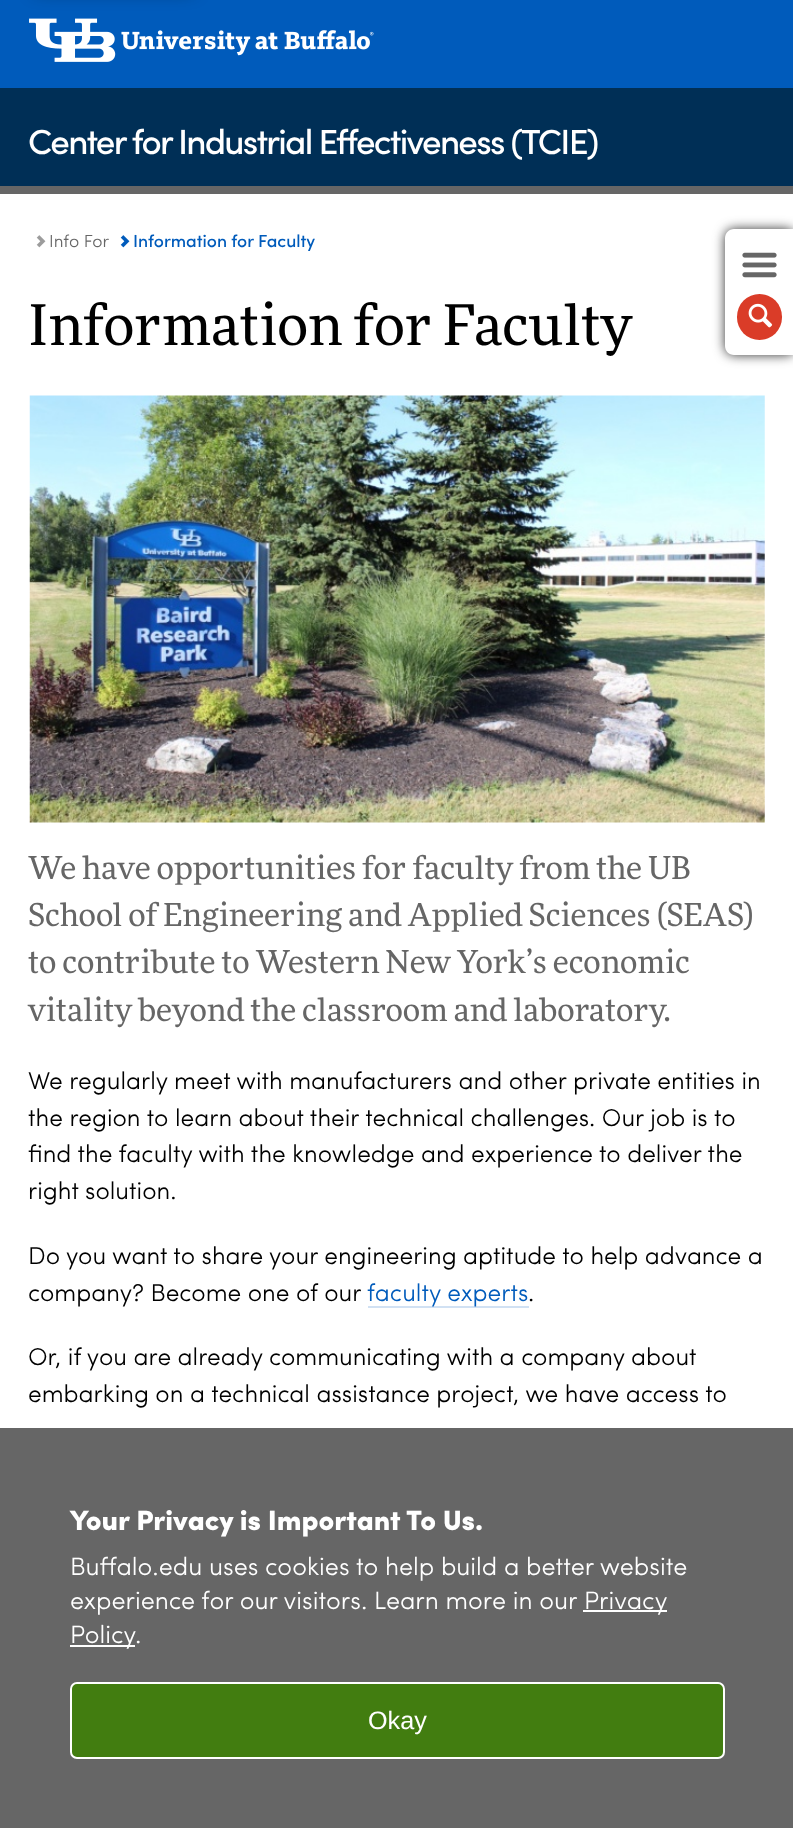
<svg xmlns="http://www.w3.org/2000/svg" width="793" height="1828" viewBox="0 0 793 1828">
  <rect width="100%" height="100%" fill="#fff"/>
  <path d="M0 0h793v88H0z" fill="#005bbb"/>
  <path d="M35 -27h158v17H35z" fill="#00000080" filter="blur(9px)"/>
  <image x="29" y="18" width="345" height="44" href="img/1.png"/>
  <path d="M0 88h793v98H0z" fill="#002f56"/>
  <path d="M0 186h793v8H0z" fill="#666"/>
  <rect x="725" y="229" width="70" height="126" rx="9" fill="#333" filter="blur(6px)"/>
  <path d="M734 229H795V355H734C729 355 725 351 725 346V238C725 233 729 229 734 229Z" fill="#fff"/>
  <image x="742" y="252" width="35" height="26" href="img/2.png"/>
  <rect x="737" y="294" width="45" height="46" rx="22.5" fill="#da3c28"/>
  <image x="748" y="303" width="25" height="25" href="img/3.png"/>
  <image x="36" y="235" width="10" height="13" href="img/4.png"/>
  <image x="120" y="235" width="10" height="13" href="img/5.png"/>
  <image x="29" y="395" width="736" height="428" href="img/6.png"/>
  <path d="M368 1306h161v2H368z" fill="#d1e1f3"/>
  <path d="M0 1428h793v400H0z" fill="#666"/>
  <path d="M583 1610h84v2H583z" fill="#fff"/>
  <path d="M70 1645h65v2H70z" fill="#fff"/>
  <rect x="71" y="1683" width="653" height="75" rx="6" fill="#427d10" stroke="#fff" stroke-width="2"/>
  <text x="28" y="154" font-family="Sofia" font-size="35" font-weight="500" letter-spacing="-1.75" fill="#fff">Center for Industrial Effectiveness (TCIE)</text>
  <text x="49" y="247" font-family="Sofia" font-size="17.5" fill="#666">Info For</text>
  <text x="133" y="247" font-family="Sofia" font-size="17.5" font-weight="500" fill="#005bbb">Information for Faculty</text>
  <text x="28" y="345" font-family="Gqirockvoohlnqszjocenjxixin" font-size="56" fill="#000">Information for Faculty</text>
  <g font-family="Gqirockvoohlnqszjocenjxixin" font-size="31.5" fill="#666">
    <text x="28" y="879">We have opportunities for faculty from the UB</text>
    <text x="28" y="926">School of Engineering and Applied Sciences (SEAS)</text>
    <text x="28" y="973">to contribute to Western New York’s economic</text>
    <text x="28" y="1021">vitality beyond the classroom and laboratory.</text>
  </g>
  <g font-family="Sofia" font-size="24.5" fill="#000">
    <text x="28" y="1089">We regularly meet with manufacturers and other private entities in</text>
    <text x="28" y="1126">the region to learn about their technical challenges. Our job is to</text>
    <text x="28" y="1162">find the faculty with the knowledge and experience to deliver the</text>
    <text x="28" y="1199">right solution.</text>
    <text x="28" y="1264">Do you want to share your engineering aptitude to help advance a</text>
    <text x="28" y="1301">company? Become one of our</text>
  </g>
  <text x="367" y="1301" font-family="Sofia" font-size="24.5" fill="#005bbb">faculty experts</text>
  <g font-family="Sofia" font-size="24.5" fill="#000">
    <text x="528" y="1301">.</text>
    <text x="28" y="1365">Or, if you are already communicating with a company about</text>
    <text x="28" y="1402">embarking on a technical assistance project, we have access to</text>
  </g>
  <text x="70" y="1530" font-family="'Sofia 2'" font-size="28" fill="#fff">Your Privacy is Important To Us.</text>
  <g font-family="Sofia" font-size="25.2" fill="#fff">
    <text x="70" y="1575">Buffalo.edu uses cookies to help build a better website</text>
    <text x="70" y="1609">experience for our visitors. Learn more in our</text>
    <text x="584" y="1609">Privacy</text>
    <text x="70" y="1643">Policy</text>
    <text x="135" y="1643">.</text>
  </g>
  <text x="368" y="1729" font-family="Liberation Sans" font-size="25.2" fill="#fff">Okay</text>
</svg>
